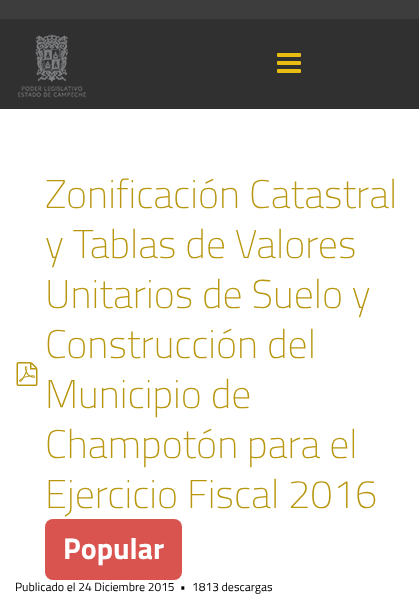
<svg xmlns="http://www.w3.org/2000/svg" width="419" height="594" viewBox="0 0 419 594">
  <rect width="100%" height="100%" fill="#fff"/>
  <path d="M0 0h419v19H0z" fill="#3d3d3d"/>
  <path d="M0 19h419v90H0z" fill="#303030"/>
  <image x="18" y="34" width="68" height="64" href="img/1.png"/>
  <image x="277" y="53" width="24" height="20" href="img/2.png"/>
  <image x="16" y="362" width="22" height="24" href="img/3.png"/>
  <rect x="45" y="519" width="137" height="61" rx="8" fill="#d9534f"/>
  <g font-family="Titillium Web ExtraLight" font-size="40" font-weight="200" fill="#b8960e">
    <text x="45" y="208">Zonificación Catastral</text>
    <text x="45" y="258">y Tablas de Valores</text>
    <text x="45" y="308">Unitarios de Suelo y</text>
    <text x="45" y="358">Construcción del</text>
    <text x="45" y="408">Municipio de</text>
    <text x="45" y="458">Champotón para el</text>
    <text x="45" y="508">Ejercicio Fiscal 2016</text>
  </g>
  <text x="63" y="559" font-family="Titillium Web" font-size="30" font-weight="bold" fill="#fff">Popular</text>
  <g font-family="Titillium Web" font-size="12" fill="#000">
    <text x="15" y="591">Publicado el 24 Diciembre 2015</text>
    <text x="180" y="591">•</text>
    <text x="192" y="591">1813 descargas</text>
  </g>
</svg>
